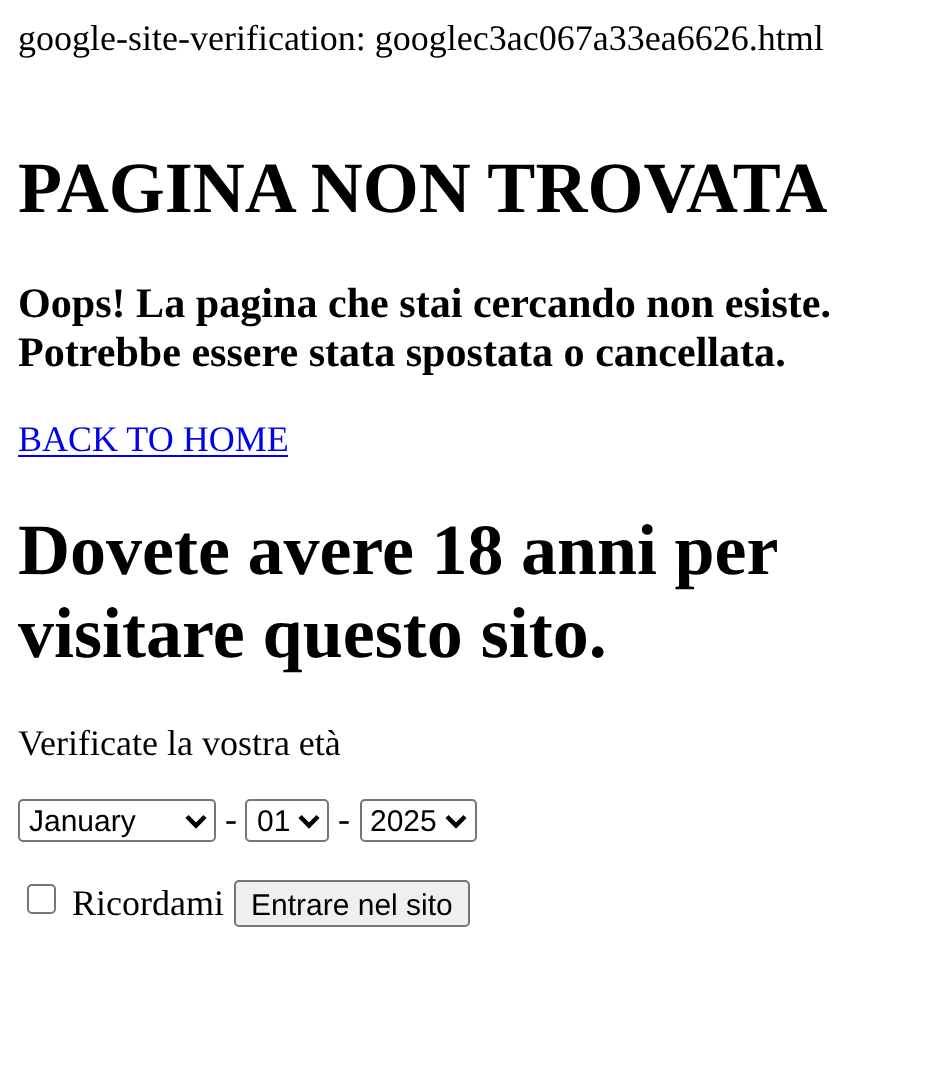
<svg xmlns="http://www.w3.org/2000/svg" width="951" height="1084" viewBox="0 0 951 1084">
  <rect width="100%" height="100%" fill="#fff"/>
  <path d="M18 455h270v2H18z" fill="#00e"/>
  <rect x="19" y="800" width="196" height="41" rx="4" fill="none" stroke="#767676" stroke-width="2"/>
  <path d="M187 816.5L196 825.5L205 816.5" fill="none" stroke="#000" stroke-width="4.5"/>
  <rect x="246" y="800" width="82" height="41" rx="4" fill="none" stroke="#767676" stroke-width="2"/>
  <path d="M300 816.5L309 825.5L318 816.5" fill="none" stroke="#000" stroke-width="4.5"/>
  <rect x="361" y="800" width="115" height="41" rx="4" fill="none" stroke="#767676" stroke-width="2"/>
  <path d="M447 816.5L456 825.5L465 816.5" fill="none" stroke="#000" stroke-width="4.5"/>
  <rect x="28" y="885" width="27" height="28" rx="4" fill="none" stroke="#767676" stroke-width="2"/>
  <rect x="235" y="881" width="234" height="45" rx="4" fill="#efefef" stroke="#767676" stroke-width="2"/>
  <text x="18" y="50" font-family="Liberation Serif" font-size="36" fill="#000">google-site-verification: googlec3ac067a33ea6626.html</text>
  <text x="18" y="212" font-family="Liberation Serif" font-size="72" font-weight="bold" fill="#000">PAGINA NON TROVATA</text>
  <g font-family="Liberation Serif" font-size="42.1" font-weight="bold" fill="#000">
    <text x="18" y="317">Oops! La pagina che stai cercando non esiste.</text>
    <text x="18" y="366">Potrebbe essere stata spostata o cancellata.</text>
  </g>
  <text x="18" y="451" font-family="Liberation Serif" font-size="36" fill="#00e">BACK TO HOME</text>
  <g font-family="Liberation Serif" font-size="72" font-weight="bold" fill="#000">
    <text x="18" y="574" word-spacing="-0.5">Dovete avere 18 anni per</text>
    <text x="18" y="657">visitare questo sito.</text>
  </g>
  <text x="18" y="755" font-family="Liberation Serif" font-size="36" fill="#000">Verificate la vostra età</text>
  <text x="29" y="831" font-family="Liberation Sans" font-size="30" fill="#000">January</text>
  <text x="225" y="831" font-family="Liberation Serif" font-size="36" fill="#000">-</text>
  <text x="257" y="831" font-family="Liberation Sans" font-size="30" fill="#000">01</text>
  <text x="338" y="831" font-family="Liberation Serif" font-size="36" fill="#000">-</text>
  <text x="370" y="831" font-family="Liberation Sans" font-size="30" fill="#000">2025</text>
  <text x="72" y="915" font-family="Liberation Serif" font-size="36" fill="#000">Ricordami</text>
  <text x="251" y="915" font-family="Liberation Sans" font-size="30" fill="#000">Entrare nel sito</text>
</svg>
